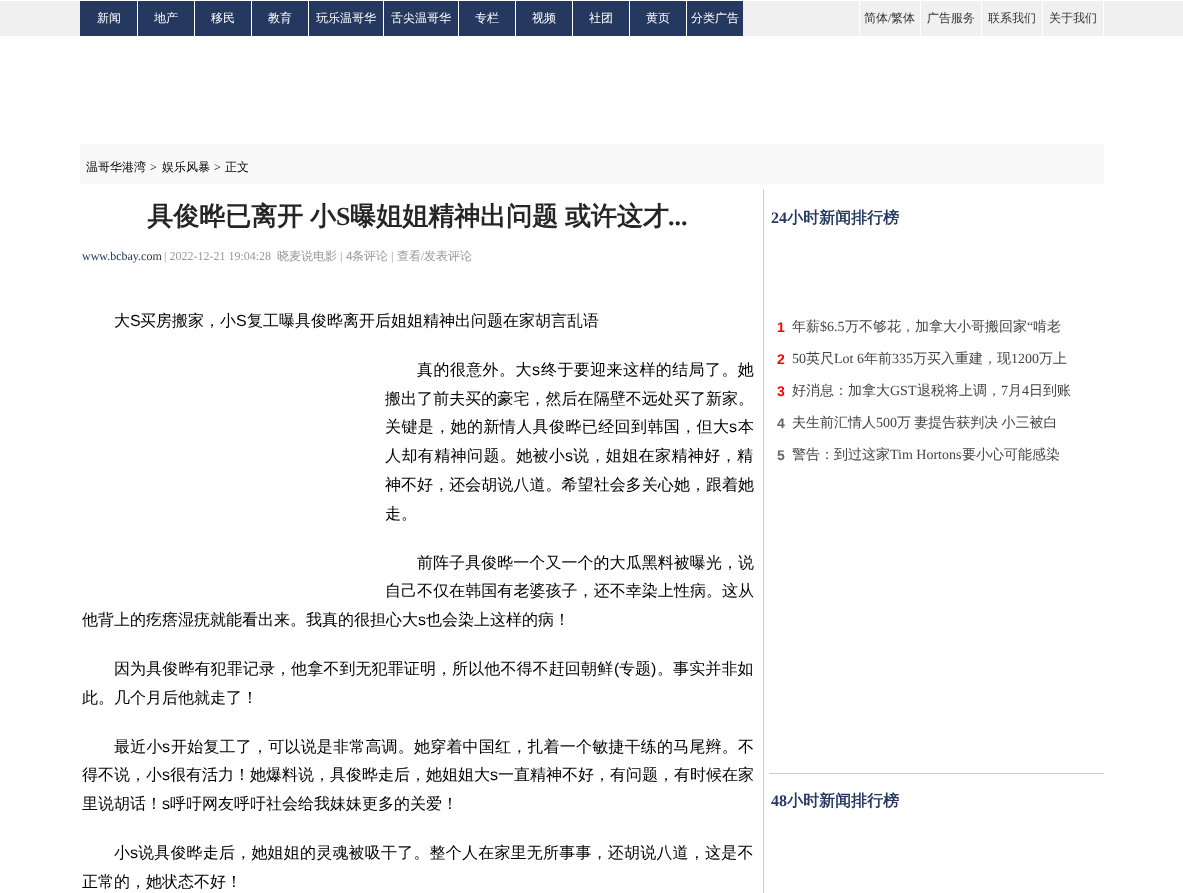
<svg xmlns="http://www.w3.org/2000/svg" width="1183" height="893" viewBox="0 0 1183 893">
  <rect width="100%" height="100%" fill="#fff"/>
  <path d="M0 1h1183v35H0z" fill="#f0f0f0"/>
  <path d="M80 1h57v35H80z" fill="#253860"/>
  <path d="M138 1h56v35H138z" fill="#253860"/>
  <path d="M137 1h1v35H137z" fill="#fff"/>
  <path d="M195 1h56v35H195z" fill="#253860"/>
  <path d="M194 1h1v35H194z" fill="#fff"/>
  <path d="M252 1h56v35H252z" fill="#253860"/>
  <path d="M251 1h1v35H251z" fill="#fff"/>
  <path d="M309 1h74v35H309z" fill="#253860"/>
  <path d="M308 1h1v35H308z" fill="#fff"/>
  <path d="M384 1h74v35H384z" fill="#253860"/>
  <path d="M383 1h1v35H383z" fill="#fff"/>
  <path d="M459 1h56v35H459z" fill="#253860"/>
  <path d="M458 1h1v35H458z" fill="#fff"/>
  <path d="M516 1h56v35H516z" fill="#253860"/>
  <path d="M515 1h1v35H515z" fill="#fff"/>
  <path d="M573 1h56v35H573z" fill="#253860"/>
  <path d="M572 1h1v35H572z" fill="#fff"/>
  <path d="M630 1h56v35H630z" fill="#253860"/>
  <path d="M629 1h1v35H629z" fill="#fff"/>
  <path d="M687 1h56v35H687z" fill="#253860"/>
  <path d="M686 1h1v35H686z" fill="#fff"/>
  <path d="M859 1h1v35H859z" fill="#fff"/>
  <path d="M920 1h1v35H920z" fill="#fff"/>
  <path d="M981 1h1v35H981z" fill="#fff"/>
  <path d="M1103 1h1v35H1103z" fill="#fff"/>
  <path d="M1042 1h1v35H1042z" fill="#fff"/>
  <path d="M80 144h1024v40H80z" fill="#f8f8f8"/>
  <path d="M763 189h1v704H763z" fill="#ccc"/>
  <path d="M769 773h335v1H769z" fill="#ccc"/>
  <g font-family="WenQuanYi Zen Hei" font-size="12" font-weight="500" fill="#fff">
    <text x="97" y="22">新闻</text>
    <text x="154" y="22">地产</text>
    <text x="211" y="22">移民</text>
    <text x="268" y="22">教育</text>
    <text x="316" y="22">玩乐温哥华</text>
    <text x="391" y="22">舌尖温哥华</text>
    <text x="475" y="22">专栏</text>
    <text x="532" y="22">视频</text>
    <text x="589" y="22">社团</text>
    <text x="646" y="22">黄页</text>
    <text x="691" y="22">分类广告</text>
  </g>
  <text x="864" y="22" font-family="WenQuanYi Zen Hei" font-size="12" font-weight="500" fill="#333">简体</text>
  <text x="888" y="22" font-family="Liberation Serif" font-size="12" fill="#333">/</text>
  <g font-family="WenQuanYi Zen Hei" font-size="12" font-weight="500" fill="#333">
    <text x="891" y="22">繁体</text>
    <text x="927" y="22">广告服务</text>
    <text x="988" y="22">联系我们</text>
    <text x="1049" y="22">关于我们</text>
  </g>
  <text x="86" y="171" font-family="WenQuanYi Zen Hei" font-size="12" font-weight="500" fill="#000">温哥华港湾</text>
  <text x="150" y="171" font-family="Liberation Serif" font-size="12" fill="#000">&gt;</text>
  <text x="162" y="171" font-family="WenQuanYi Zen Hei" font-size="12" font-weight="500" fill="#000">娱乐风暴</text>
  <text x="214" y="171" font-family="Liberation Serif" font-size="12" fill="#000">&gt;</text>
  <text x="225" y="171" font-family="WenQuanYi Zen Hei" font-size="12" font-weight="500" fill="#000">正文</text>
  <text x="147" y="225" word-spacing="-1" font-family="WenQuanYi Zen Hei" font-size="26" font-weight="bold" fill="#252525">具俊晔已离开 小</text>
  <text x="336" y="225" font-family="Liberation Serif" font-size="26" font-weight="bold" fill="#252525">S</text>
  <text x="350" y="225" word-spacing="-1" font-family="WenQuanYi Zen Hei" font-size="26" font-weight="bold" fill="#252525">曝姐姐精神出问题 或许这才</text>
  <text x="668" y="225" font-family="Liberation Serif" font-size="26" font-weight="bold" fill="#252525">...</text>
  <text x="82" y="260" font-family="Liberation Serif" font-size="12" fill="#253860">www.bcbay.com</text>
  <text x="164" y="260" font-family="Liberation Serif" font-size="12" fill="#999">| 2022-12-21 19:04:28</text>
  <text x="277" y="260" font-family="WenQuanYi Zen Hei" font-size="12" font-weight="500" fill="#999">晓麦说电影</text>
  <text x="340" y="260" font-family="Liberation Serif" font-size="12" fill="#999">|</text>
  <text x="346" y="260" font-family="Liberation Sans" font-size="12" fill="#999">4</text>
  <text x="352" y="260" font-family="WenQuanYi Zen Hei" font-size="12" font-weight="500" fill="#999">条评论</text>
  <text x="391" y="260" font-family="Liberation Serif" font-size="12" fill="#999">|</text>
  <text x="397" y="260" font-family="WenQuanYi Zen Hei" font-size="12" font-weight="500" fill="#999">查看</text>
  <text x="421" y="260" font-family="Liberation Serif" font-size="12" fill="#999">/</text>
  <text x="424" y="260" font-family="WenQuanYi Zen Hei" font-size="12" font-weight="500" fill="#999">发表评论</text>
  <text x="114" y="326" font-family="WenQuanYi Zen Hei" font-size="16" font-weight="500" fill="#000">大</text>
  <text x="130" y="326" font-family="Liberation Sans" font-size="16" fill="#000">S</text>
  <text x="140" y="326" font-family="WenQuanYi Zen Hei" font-size="16" font-weight="500" fill="#000">买房搬家，小</text>
  <text x="236" y="326" font-family="Liberation Sans" font-size="16" fill="#000">S</text>
  <text x="247" y="326" font-family="WenQuanYi Zen Hei" font-size="16" font-weight="500" fill="#000">复工曝具俊晔离开后姐姐精神出问题在家胡言乱语</text>
  <text x="417" y="375" font-family="WenQuanYi Zen Hei" font-size="16" font-weight="500" letter-spacing="0.4" fill="#000">真的很意外。大</text>
  <text x="532" y="375" font-family="Liberation Sans" font-size="16" letter-spacing="0.4" fill="#000">s</text>
  <text x="541" y="375" font-family="WenQuanYi Zen Hei" font-size="16" font-weight="500" letter-spacing="0.4" fill="#000">终于要迎来这样的结局了。她</text>
  <text x="385" y="404" font-family="WenQuanYi Zen Hei" font-size="16" font-weight="500" letter-spacing="0.05" fill="#000">搬出了前夫买的豪宅，然后在隔壁不远处买了新家。</text>
  <text x="385" y="432" font-family="WenQuanYi Zen Hei" font-size="16" font-weight="500" letter-spacing="0.4" fill="#000">关键是，她的新情人具俊晔已经回到韩国，但大</text>
  <text x="729" y="432" font-family="Liberation Sans" font-size="16" letter-spacing="0.4" fill="#000">s</text>
  <g font-family="WenQuanYi Zen Hei" font-size="16" font-weight="500" letter-spacing="0.4" fill="#000">
    <text x="738" y="432">本</text>
    <text x="385" y="461">人却有精神问题。她被小</text>
  </g>
  <text x="565" y="461" font-family="Liberation Sans" font-size="16" letter-spacing="0.4" fill="#000">s</text>
  <text x="573" y="461" font-family="WenQuanYi Zen Hei" font-size="16" font-weight="500" letter-spacing="0.4" fill="#000">说，姐姐在家精神好，精</text>
  <text x="385" y="490" font-family="WenQuanYi Zen Hei" font-size="16" font-weight="500" letter-spacing="0.05" fill="#000">神不好，还会胡说八道。希望社会多关心她，跟着她</text>
  <text x="385" y="519" font-family="WenQuanYi Zen Hei" font-size="16" font-weight="500" fill="#000">走。</text>
  <g font-family="WenQuanYi Zen Hei" font-size="16" font-weight="500" letter-spacing="0.05" fill="#000">
    <text x="417" y="568">前阵子具俊晔一个又一个的大瓜黑料被曝光，说</text>
    <text x="385" y="596">自己不仅在韩国有老婆孩子，还不幸染上性病。这从</text>
  </g>
  <text x="82" y="625" font-family="WenQuanYi Zen Hei" font-size="16" font-weight="500" fill="#000">他背上的疙瘩湿疣就能看出来。我真的很担心大</text>
  <text x="418" y="625" font-family="Liberation Sans" font-size="16" fill="#000">s</text>
  <text x="426" y="625" font-family="WenQuanYi Zen Hei" font-size="16" font-weight="500" fill="#000">也会染上这样的病！</text>
  <text x="114" y="674" font-family="WenQuanYi Zen Hei" font-size="16" font-weight="500" letter-spacing="0.1" fill="#000">因为具俊晔有犯罪记录，他拿不到无犯罪证明，所以他不得不赶回朝鲜</text>
  <text x="614" y="674" font-family="Liberation Sans" font-size="16" letter-spacing="0.1" fill="#000">(</text>
  <text x="619" y="674" font-family="WenQuanYi Zen Hei" font-size="16" font-weight="500" letter-spacing="0.1" fill="#000">专题</text>
  <text x="651" y="674" font-family="Liberation Sans" font-size="16" letter-spacing="0.1" fill="#000">)</text>
  <text x="657" y="674" font-family="WenQuanYi Zen Hei" font-size="16" font-weight="500" letter-spacing="0.1" fill="#000">。事实并非如</text>
  <text x="82" y="703" font-family="WenQuanYi Zen Hei" font-size="16" font-weight="500" fill="#000">此。几个月后他就走了！</text>
  <text x="114" y="752" font-family="WenQuanYi Zen Hei" font-size="16" font-weight="500" letter-spacing="0.2" fill="#000">最近小</text>
  <text x="162" y="752" font-family="Liberation Sans" font-size="16" letter-spacing="0.2" fill="#000">s</text>
  <text x="171" y="752" font-family="WenQuanYi Zen Hei" font-size="16" font-weight="500" letter-spacing="0.2" fill="#000">开始复工了，可以说是非常高调。她穿着中国红，扎着一个敏捷干练的马尾辫。不</text>
  <text x="82" y="780" font-family="WenQuanYi Zen Hei" font-size="16" font-weight="500" fill="#000">得不说，小</text>
  <text x="162" y="780" font-family="Liberation Sans" font-size="16" fill="#000">s</text>
  <text x="170" y="780" font-family="WenQuanYi Zen Hei" font-size="16" font-weight="500" fill="#000">很有活力！她爆料说，具俊晔走后，她姐姐大</text>
  <text x="490" y="780" font-family="Liberation Sans" font-size="16" fill="#000">s</text>
  <g font-family="WenQuanYi Zen Hei" font-size="16" font-weight="500" fill="#000">
    <text x="498" y="780">一直精神不好，有问题，有时候在家</text>
    <text x="82" y="809">里说胡话！</text>
  </g>
  <text x="162" y="809" font-family="Liberation Sans" font-size="16" fill="#000">s</text>
  <text x="170" y="809" font-family="WenQuanYi Zen Hei" font-size="16" font-weight="500" fill="#000">呼吁网友呼吁社会给我妹妹更多的关爱！</text>
  <text x="114" y="858" font-family="WenQuanYi Zen Hei" font-size="16" font-weight="500" letter-spacing="0.2" fill="#000">小</text>
  <text x="130" y="858" font-family="Liberation Sans" font-size="16" letter-spacing="0.2" fill="#000">s</text>
  <text x="138" y="858" font-family="WenQuanYi Zen Hei" font-size="16" font-weight="500" letter-spacing="0.2" fill="#000">说具俊晔走后，她姐姐的灵魂被吸干了。整个人在家里无所事事，还胡说八道，这是不</text>
  <text x="82" y="887" font-family="WenQuanYi Zen Hei" font-size="16" font-weight="500" fill="#000">正常的，她状态不好！</text>
  <text x="771" y="223" font-family="Liberation Serif" font-size="16" font-weight="bold" fill="#253860">24</text>
  <text x="787" y="223" font-family="WenQuanYi Zen Hei" font-size="16" font-weight="bold" fill="#253860">小时新闻排行榜</text>
  <text x="777" y="332" font-family="Liberation Sans" font-size="14" font-weight="bold" fill="#f00">1</text>
  <text x="792" y="331" font-family="WenQuanYi Zen Hei" font-size="14" font-weight="500" fill="#444">年薪</text>
  <text x="820" y="331" font-family="Liberation Serif" font-size="14" fill="#444">$6.5</text>
  <text x="845" y="331" font-family="WenQuanYi Zen Hei" font-size="14" font-weight="500" fill="#444">万不够花，加拿大小哥搬回家</text>
  <text x="1027" y="331" font-family="Liberation Serif" font-size="14" fill="#444">“</text>
  <text x="1033" y="331" font-family="WenQuanYi Zen Hei" font-size="14" font-weight="500" fill="#444">啃老</text>
  <text x="777" y="364" font-family="Liberation Sans" font-size="14" font-weight="bold" fill="#f00">2</text>
  <text x="792" y="363" font-family="Liberation Serif" font-size="14" fill="#444">50</text>
  <text x="806" y="363" font-family="WenQuanYi Zen Hei" font-size="14" font-weight="500" fill="#444">英尺</text>
  <text x="834" y="363" font-family="Liberation Serif" font-size="14" fill="#444">Lot 6</text>
  <text x="864" y="363" font-family="WenQuanYi Zen Hei" font-size="14" font-weight="500" fill="#444">年前</text>
  <text x="892" y="363" font-family="Liberation Serif" font-size="14" fill="#444">335</text>
  <text x="913" y="363" font-family="WenQuanYi Zen Hei" font-size="14" font-weight="500" fill="#444">万买入重建，现</text>
  <text x="1011" y="363" font-family="Liberation Serif" font-size="14" fill="#444">1200</text>
  <text x="1039" y="363" font-family="WenQuanYi Zen Hei" font-size="14" font-weight="500" fill="#444">万上</text>
  <text x="777" y="396" font-family="Liberation Sans" font-size="14" font-weight="bold" fill="#f00">3</text>
  <text x="792" y="395" font-family="WenQuanYi Zen Hei" font-size="14" font-weight="500" fill="#444">好消息：加拿大</text>
  <text x="890" y="395" font-family="Liberation Serif" font-size="14" fill="#444">GST</text>
  <text x="917" y="395" font-family="WenQuanYi Zen Hei" font-size="14" font-weight="500" fill="#444">退税将上调，</text>
  <text x="1001" y="395" font-family="Liberation Serif" font-size="14" fill="#444">7</text>
  <text x="1008" y="395" font-family="WenQuanYi Zen Hei" font-size="14" font-weight="500" fill="#444">月</text>
  <text x="1022" y="395" font-family="Liberation Serif" font-size="14" fill="#444">4</text>
  <text x="1029" y="395" font-family="WenQuanYi Zen Hei" font-size="14" font-weight="500" fill="#444">日到账</text>
  <text x="777" y="428" font-family="Liberation Sans" font-size="14" font-weight="bold" fill="#666">4</text>
  <text x="792" y="427" font-family="WenQuanYi Zen Hei" font-size="14" font-weight="500" fill="#444">夫生前汇情人</text>
  <text x="876" y="427" font-family="Liberation Serif" font-size="14" fill="#444">500</text>
  <text x="897" y="427" word-spacing="-1" font-family="WenQuanYi Zen Hei" font-size="14" font-weight="500" fill="#444">万 妻提告获判决 小三被白</text>
  <text x="777" y="460" font-family="Liberation Sans" font-size="14" font-weight="bold" fill="#666">5</text>
  <text x="792" y="459" font-family="WenQuanYi Zen Hei" font-size="14" font-weight="500" fill="#444">警告：到过这家</text>
  <text x="890" y="459" font-family="Liberation Serif" font-size="14" fill="#444">Tim Hortons</text>
  <text x="962" y="459" font-family="WenQuanYi Zen Hei" font-size="14" font-weight="500" fill="#444">要小心可能感染</text>
  <text x="771" y="806" font-family="Liberation Serif" font-size="16" font-weight="bold" fill="#253860">48</text>
  <text x="787" y="806" font-family="WenQuanYi Zen Hei" font-size="16" font-weight="bold" fill="#253860">小时新闻排行榜</text>
</svg>
